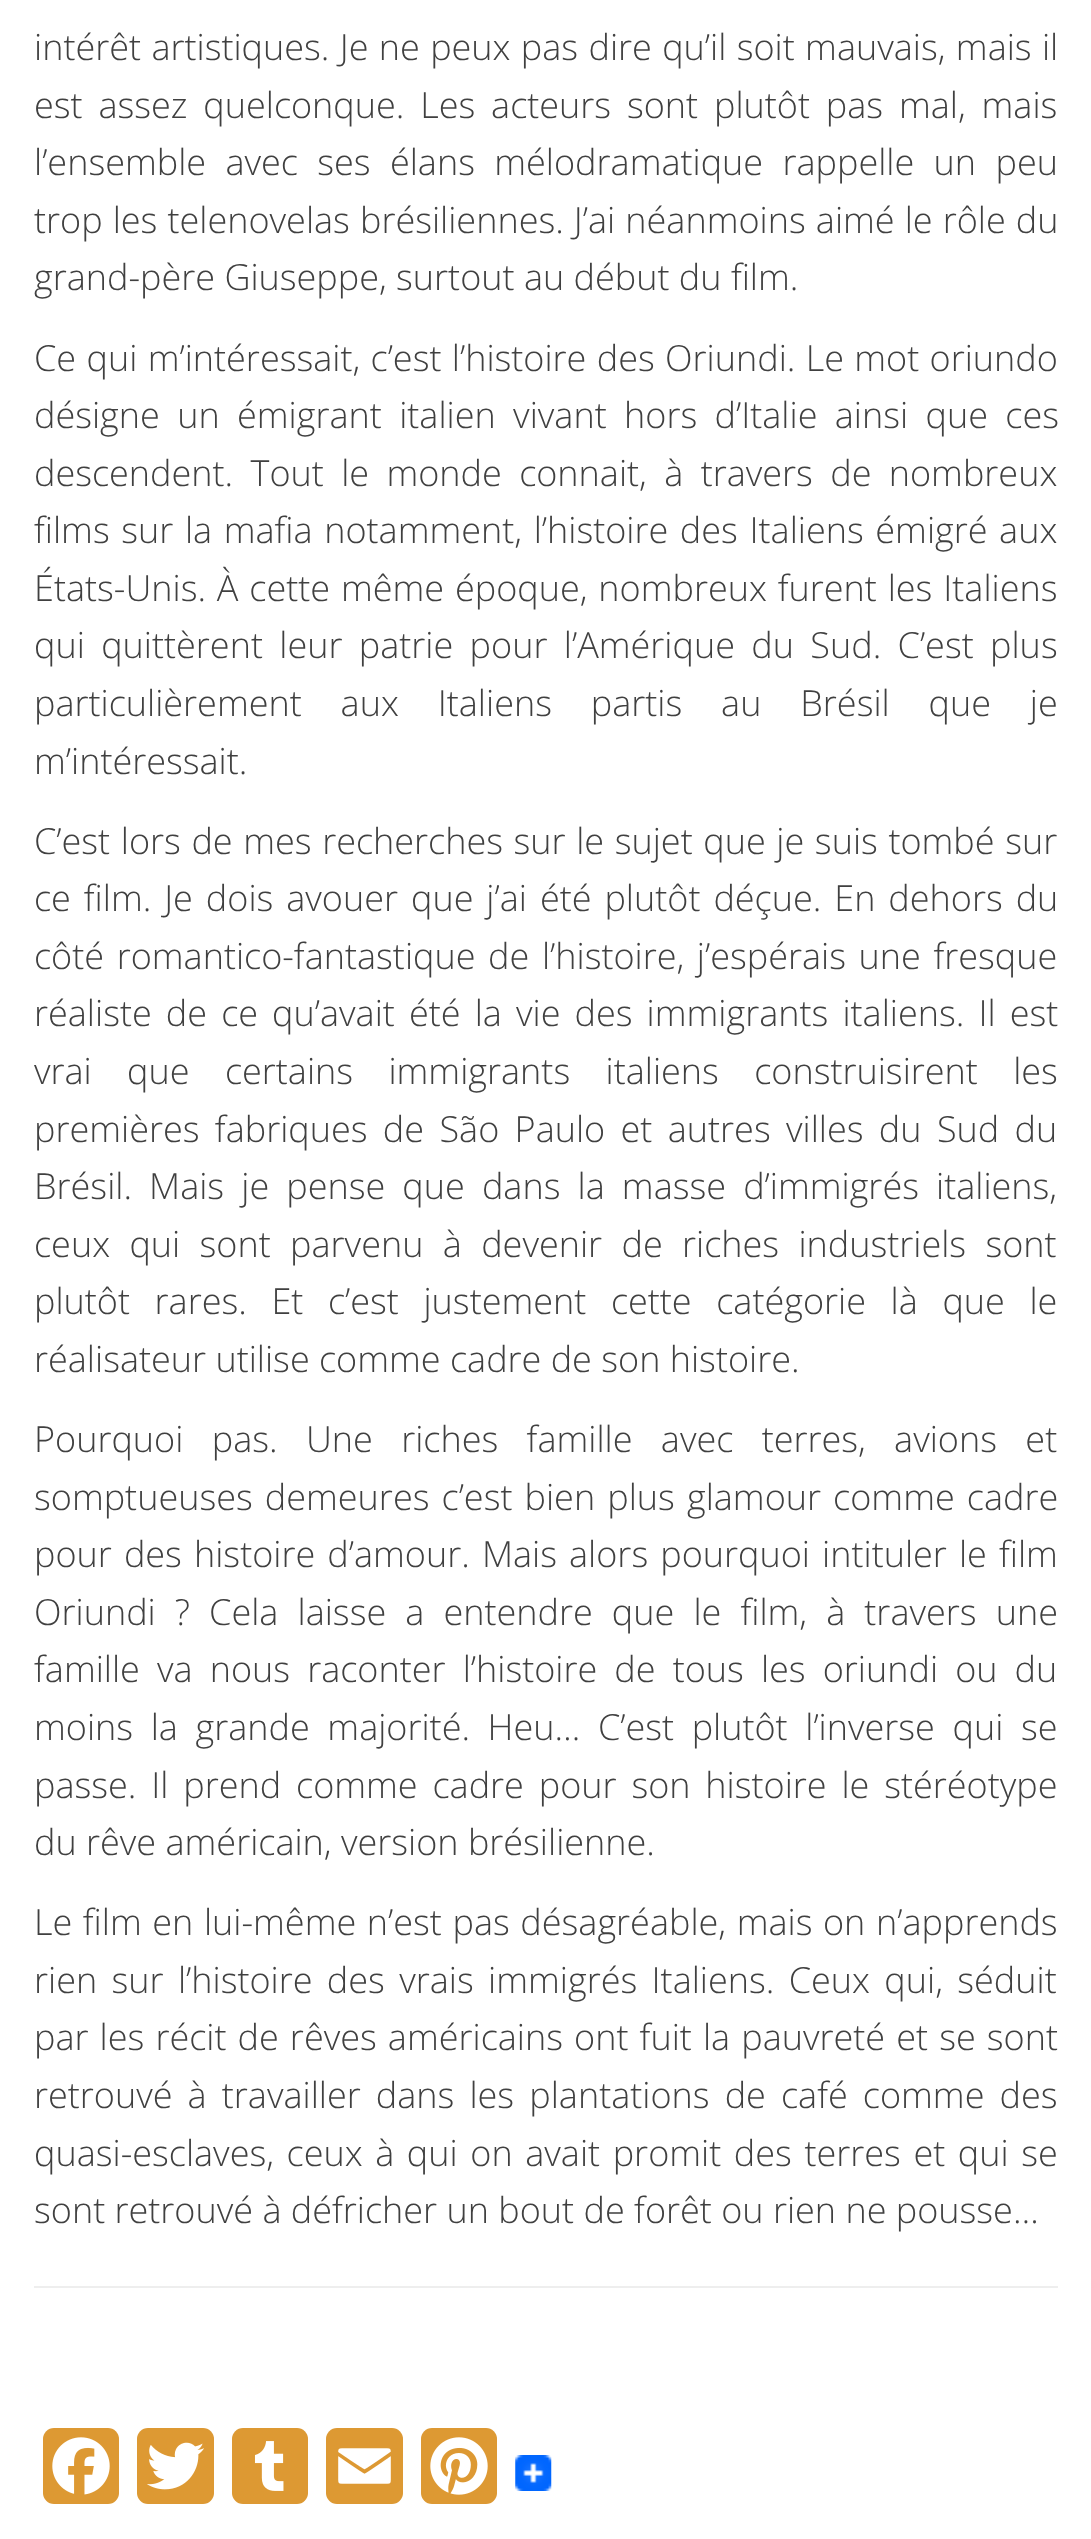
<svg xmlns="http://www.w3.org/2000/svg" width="1091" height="2539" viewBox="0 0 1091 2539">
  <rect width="100%" height="100%" fill="#fff"/>
  <path d="M34 2286h1024v2H34z" fill="#eee"/>
  <rect x="43" y="2428" width="76" height="76" rx="11" fill="#d93"/>
  <image x="52" y="2437" width="58" height="58" href="img/1.png"/>
  <rect x="137" y="2428" width="77" height="76" rx="11" fill="#d93"/>
  <image x="147" y="2442" width="57" height="48" href="img/2.png"/>
  <rect x="232" y="2428" width="76" height="76" rx="11" fill="#d93"/>
  <image x="254" y="2441" width="30" height="50" href="img/3.png"/>
  <rect x="326" y="2428" width="77" height="76" rx="11" fill="#d93"/>
  <image x="338" y="2448" width="53" height="36" href="img/4.png"/>
  <rect x="421" y="2428" width="76" height="76" rx="11" fill="#d93"/>
  <image x="430" y="2437" width="58" height="58" href="img/5.png"/>
  <image x="515" y="2455" width="37" height="36" href="img/6.png"/>
  <g font-family="Open Sans" font-size="36" font-weight="300" fill="#404040">
    <text x="34" y="60" word-spacing="1">intérêt artistiques. Je ne peux pas dire qu’il soit mauvais, mais il</text>
    <text x="34" y="118" word-spacing="6.5">est assez quelconque. Les acteurs sont plutôt pas mal, mais</text>
    <text x="34" y="175" word-spacing="10">l’ensemble avec ses élans mélodramatique rappelle un peu</text>
    <text x="34" y="233" word-spacing="0.75">trop les telenovelas brésiliennes. J’ai néanmoins aimé le rôle du</text>
    <text x="34" y="290">grand-père Giuseppe, surtout au début du film.</text>
    <text x="34" y="371" word-spacing="1">Ce qui m’intéressait, c’est l’histoire des Oriundi. Le mot oriundo</text>
    <text x="34" y="428" word-spacing="8">désigne un émigrant italien vivant hors d’Italie ainsi que ces</text>
    <text x="34" y="486" word-spacing="8">descendent. Tout le monde connait, à travers de nombreux</text>
    <text x="34" y="543" word-spacing="2.25">films sur la mafia notamment, l’histoire des Italiens émigré aux</text>
    <text x="34" y="601" word-spacing="1.5">États-Unis. À cette même époque, nombreux furent les Italiens</text>
    <text x="34" y="658" word-spacing="7">qui quittèrent leur patrie pour l’Amérique du Sud. C’est plus</text>
    <text x="34" y="716" word-spacing="29.5">particulièrement aux Italiens partis au Brésil que je</text>
    <text x="34" y="774">m’intéressait.</text>
    <text x="34" y="854" word-spacing="1.25">C’est lors de mes recherches sur le sujet que je suis tombé sur</text>
    <text x="34" y="911" word-spacing="3.6">ce film. Je dois avouer que j’ai été plutôt déçue. En dehors du</text>
    <text x="34" y="969" word-spacing="3.25">côté romantico-fantastique de l’histoire, j’espérais une fresque</text>
    <text x="34" y="1026" word-spacing="4.75">réaliste de ce qu’avait été la vie des immigrants italiens. Il est</text>
    <text x="34" y="1084" word-spacing="26">vrai que certains immigrants italiens construisirent les</text>
    <text x="34" y="1142" word-spacing="6">premières fabriques de São Paulo et autres villes du Sud du</text>
    <text x="34" y="1199" word-spacing="7.75">Brésil. Mais je pense que dans la masse d’immigrés italiens,</text>
    <text x="34" y="1257" word-spacing="10">ceux qui sont parvenu à devenir de riches industriels sont</text>
    <text x="34" y="1314" word-spacing="15.25">plutôt rares. Et c’est justement cette catégorie là que le</text>
    <text x="34" y="1372">réalisateur utilise comme cadre de son histoire.</text>
    <text x="34" y="1452" word-spacing="19">Pourquoi pas. Une riches famille avec terres, avions et</text>
    <text x="34" y="1510" word-spacing="2.75">somptueuses demeures c’est bien plus glamour comme cadre</text>
    <text x="34" y="1567" word-spacing="2.75">pour des histoire d’amour. Mais alors pourquoi intituler le film</text>
    <text x="34" y="1625" word-spacing="9.75">Oriundi ? Cela laisse a entendre que le film, à travers une</text>
    <text x="34" y="1682" word-spacing="7.75">famille va nous raconter l’histoire de tous les oriundi ou du</text>
    <text x="34" y="1740" word-spacing="8.25">moins la grande majorité. Heu… C’est plutôt l’inverse qui se</text>
    <text x="34" y="1798" word-spacing="5.5">passe. Il prend comme cadre pour son histoire le stéréotype</text>
    <text x="34" y="1855">du rêve américain, version brésilienne.</text>
    <text x="34" y="1935" word-spacing="1.25">Le film en lui-même n’est pas désagréable, mais on n’apprends</text>
    <text x="34" y="1993" word-spacing="5">rien sur l’histoire des vrais immigrés Italiens. Ceux qui, séduit</text>
    <text x="34" y="2050" word-spacing="1.75">par les récit de rêves américains ont fuit la pauvreté et se sont</text>
    <text x="34" y="2108" word-spacing="5.75">retrouvé à travailler dans les plantations de café comme des</text>
    <text x="34" y="2166" word-spacing="3.25">quasi-esclaves, ceux à qui on avait promit des terres et qui se</text>
    <text x="34" y="2223">sont retrouvé à défricher un bout de forêt ou rien ne pousse…</text>
  </g>
</svg>
